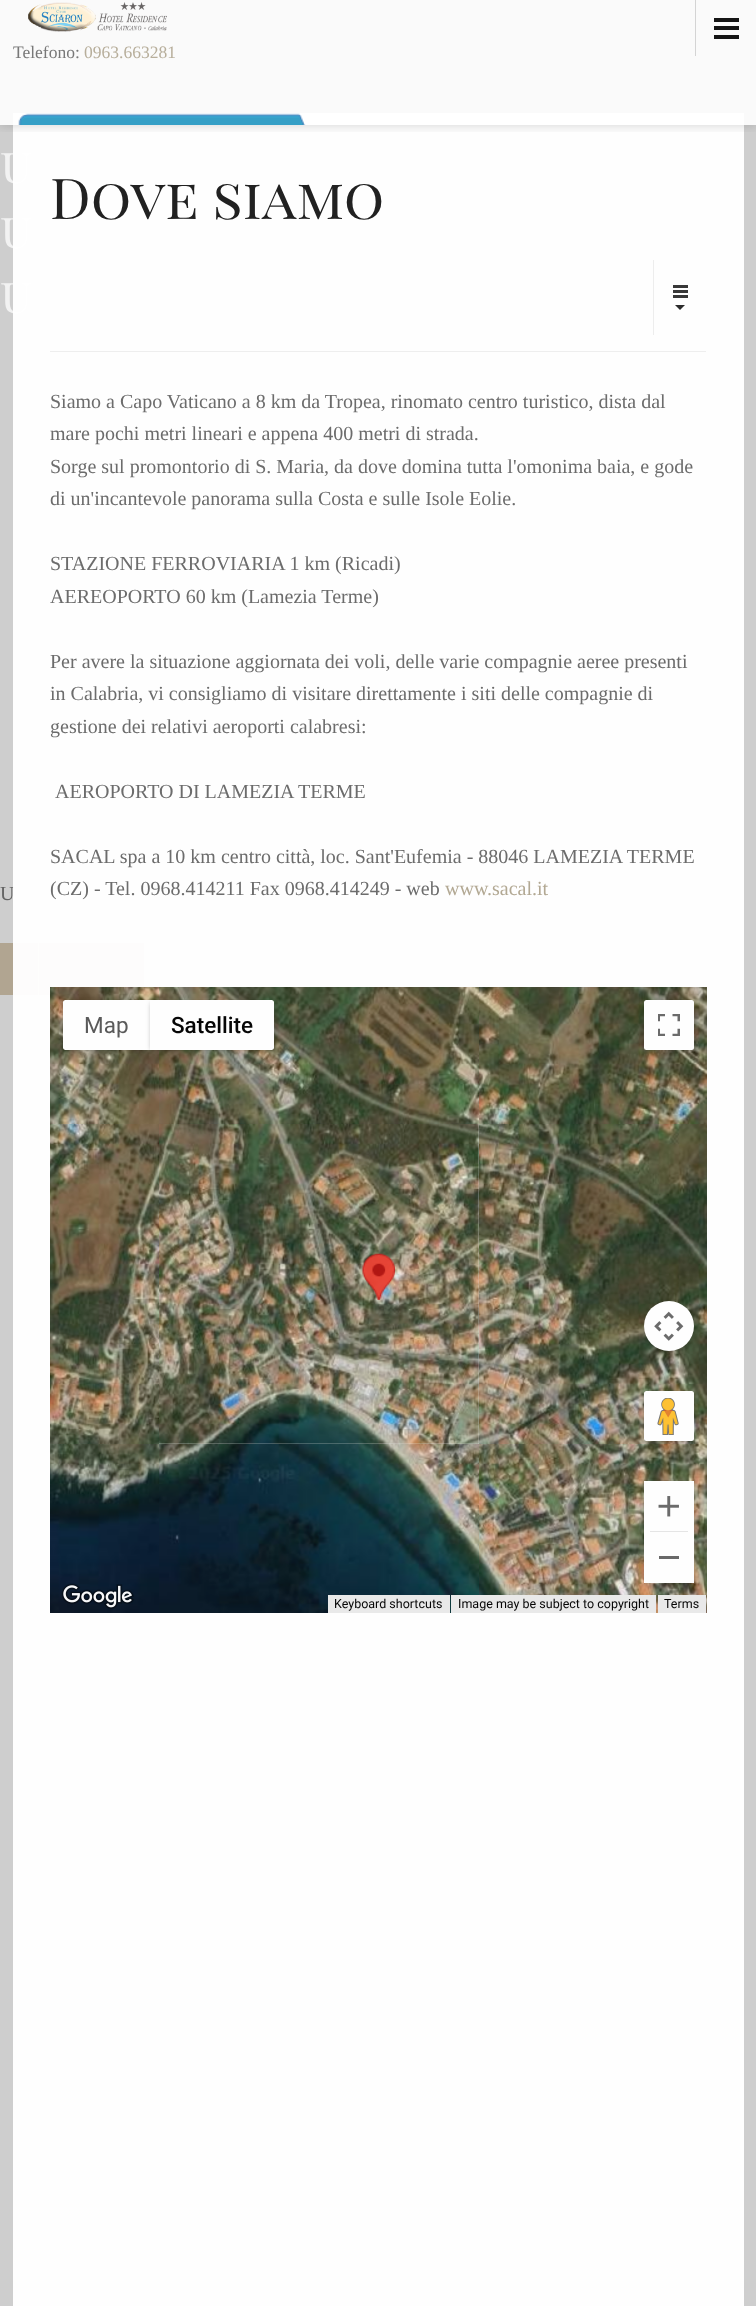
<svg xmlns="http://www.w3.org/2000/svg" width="756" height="2306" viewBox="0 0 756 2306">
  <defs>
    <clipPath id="clip1"><path d="M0 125h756v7H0z"/></clipPath>
  </defs>
  <rect width="100%" height="100%" fill="#cecece"/>
  <path d="M0 943h144v52H0z" fill="#b1a591"/>
  <path d="M38.5 150.5h682v2120H38.5z" fill="none" stroke="#ffffff66"/>
  <g font-family="Playfair Display SC" font-size="49" fill="#f2f2f2">
    <text x="0" y="183">u</text>
    <text x="0" y="248">u</text>
    <text x="0" y="313">u</text>
  </g>
  <text x="0" y="900" font-family="Liberation Serif" font-size="20" fill="#646464">U</text>
  <path d="M13 113h731v2193H13z" fill="#fffffff7"/>
  <g clip-path="url(#clip1)">
    <path d="M0 0h756v125H0z" fill="#0000002e" filter="blur(6px)"/>
  </g>
  <path d="M0 0h756v125H0z" fill="#ffffffe6"/>
  <image x="18" y="113" width="288" height="12" href="img/2.png"/>
  <text x="84" y="58" font-family="Liberation Serif" font-size="17.5" fill="#b7ae9b">0963.663281</text>
  <text x="13" y="58" font-family="Liberation Serif" font-size="17.5" fill="#787878">Telefono:</text>
  <image x="28" y="2" width="139" height="30" href="img/1.png"/>
  <path d="M714 35h25v4H714z" fill="#151515"/>
  <path d="M714 26h25v4H714z" fill="#151515"/>
  <path d="M714 18h25v4H714z" fill="#151515"/>
  <path d="M695 0h1v56H695z" fill="#d4d4d4"/>
  <path d="M50 988h656v625H50z" fill="#e6e4e0"/>
  <image x="479" y="1444" width="228" height="169" href="img/11.png"/>
  <path d="M658 1595h48v18H658z" fill="#e9e9e9"/>
  <text x="664" y="1608" font-family="Roboto" font-size="12.5" fill="#060606">Terms</text>
  <image x="159" y="1444" width="320" height="169" href="img/10.png"/>
  <path d="M451 1595h205v18H451z" fill="#e9e9e9"/>
  <text x="458" y="1608" font-family="Roboto" font-size="12.5" fill="#060606">Image may be subject to copyright</text>
  <path d="M328 1595h122v18H328z" fill="#e9e9e9"/>
  <text x="334" y="1608" font-family="Roboto" font-size="12.5" fill="#060606">Keyboard shortcuts</text>
  <image x="50" y="1444" width="109" height="169" href="img/9.png"/>
  <image x="61" y="1583" width="73" height="26" href="img/17.png"/>
  <rect x="645" y="1484" width="48" height="99" rx="1" fill="#0606064d" filter="blur(2.5px)"/>
  <path d="M644 1481h50v102H644z" fill="#fefefe"/>
  <path d="M659 1556h20v3H659z" fill="#696969"/>
  <path d="M650 1531h38v1H650z" fill="#e5e5e5"/>
  <image x="658" y="1496" width="21" height="21" href="img/16.png"/>
  <image x="479" y="1124" width="228" height="320" href="img/8.png"/>
  <rect x="645" y="1394" width="48" height="47" rx="1" fill="#0606064d" filter="blur(2.5px)"/>
  <rect x="644" y="1391" width="50" height="50" rx="2.5" fill="#fefefe"/>
  <image x="657" y="1398" width="22" height="37" href="img/15.png"/>
  <rect x="645" y="1304" width="48" height="47" rx="23.5" fill="#0606064d" filter="blur(2.5px)"/>
  <circle cx="669" cy="1326" r="25" fill="#fefefe"/>
  <image x="654" y="1311" width="30" height="30" href="img/14.png"/>
  <image x="479" y="987" width="228" height="137" href="img/5.png"/>
  <rect x="645" y="1003" width="48" height="47" rx="1" fill="#0606064d" filter="blur(2.5px)"/>
  <rect x="644" y="1000" width="50" height="50" rx="2.5" fill="#fefefe"/>
  <image x="658" y="1014" width="22" height="22" href="img/13.png"/>
  <image x="158" y="1123" width="321" height="321" href="img/7.png"/>
  <image x="50" y="987" width="109" height="137" href="img/3.png"/>
  <rect x="64" y="1003" width="85" height="47" rx="1" fill="#0606064d" filter="blur(2.5px)"/>
  <path d="M65.5 1000H150V1050H65.5C64 1050 63 1049 63 1047.5V1002.5C63 1001 64 1000 65.5 1000Z" fill="#fefefe"/>
  <image x="159" y="987" width="320" height="137" href="img/4.png"/>
  <rect x="151" y="1003" width="122" height="47" rx="1" fill="#0606064d" filter="blur(2.5px)"/>
  <path d="M150 1000H271.5C273 1000 274 1001 274 1002.5V1047.5C274 1049 273 1050 271.5 1050H150Z" fill="#fefefe"/>
  <text x="171" y="1033" font-family="Roboto" font-size="22.5" font-weight="500" fill="#060606">Satellite</text>
  <text x="84" y="1033" font-family="Roboto" font-size="22.5" fill="#5a5a5a">Map</text>
  <image x="362" y="1253" width="33" height="47" href="img/12.png"/>
  <image x="50" y="1124" width="109" height="320" href="img/6.png"/>
  <path d="M675 305H685L680 310Z" fill="#2b2b2b"/>
  <path d="M673 295h15v3H673z" fill="#383838"/>
  <path d="M673 290h15v3H673z" fill="#383838"/>
  <path d="M673 285h15v3H673z" fill="#383838"/>
  <path d="M653 260h1v75H653z" fill="#ededed"/>
  <text x="445" y="895" font-family="Liberation Serif" font-size="20" fill="#b2a893">www.sacal.it</text>
  <g font-family="Liberation Serif" font-size="20" fill="#6c6c6c">
    <text x="50" y="895">(CZ) - Tel. 0968.414211 Fax 0968.414249 - web</text>
    <text x="50" y="863">SACAL spa a 10 km centro città, loc. Sant'Eufemia - 88046 LAMEZIA TERME</text>
    <text x="55" y="798">AEROPORTO DI LAMEZIA TERME</text>
    <text x="50" y="733">gestione dei relativi aeroporti calabresi:</text>
    <text x="50" y="700">in Calabria, vi consigliamo di visitare direttamente i siti delle compagnie di</text>
    <text x="50" y="668">Per avere la situazione aggiornata dei voli, delle varie compagnie aeree presenti</text>
    <text x="50" y="603">AEREOPORTO 60 km (Lamezia Terme)</text>
    <text x="50" y="570">STAZIONE FERROVIARIA 1 km (Ricadi)</text>
    <text x="50" y="505">di un'incantevole panorama sulla Costa e sulle Isole Eolie.</text>
    <text x="50" y="473">Sorge sul promontorio di S. Maria, da dove domina tutta l'omonima baia, e gode</text>
    <text x="50" y="440">mare pochi metri lineari e appena 400 metri di strada.</text>
    <text x="50" y="408">Siamo a Capo Vaticano a 8 km da Tropea, rinomato centro turistico, dista dal</text>
  </g>
  <text x="50" y="219" font-family="Playfair Display SC" font-size="56.25" fill="#212121">Dove siamo</text>
  <path d="M50 351h656v1H50z" fill="#eee"/>
</svg>
